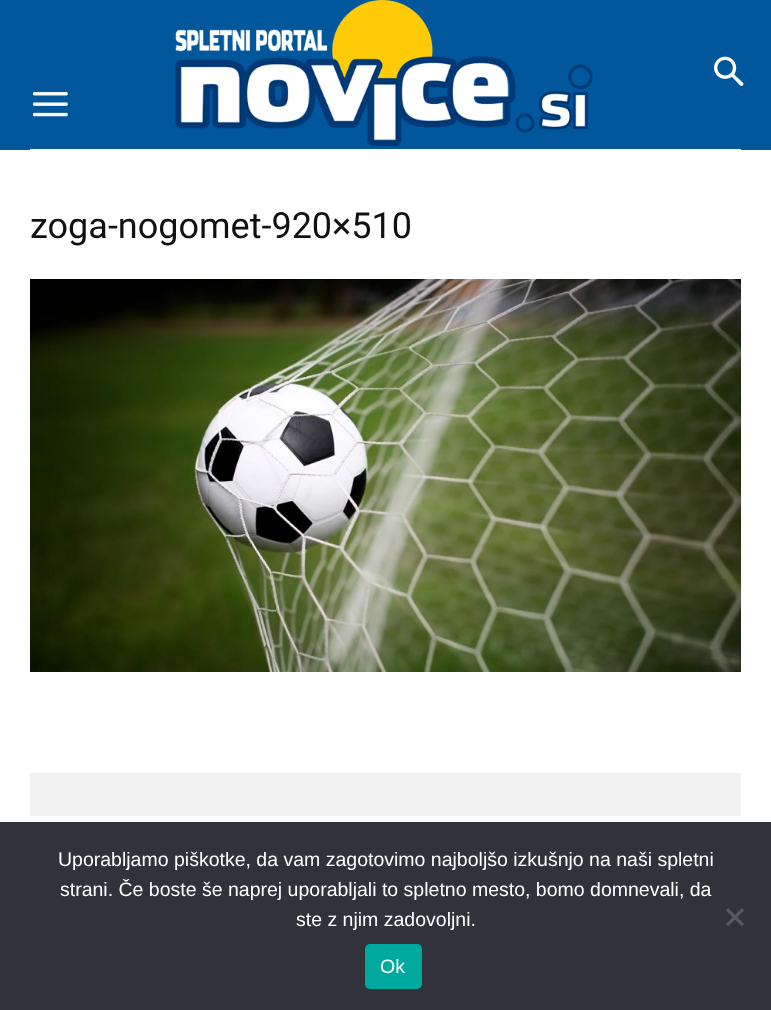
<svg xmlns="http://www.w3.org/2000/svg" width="771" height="1010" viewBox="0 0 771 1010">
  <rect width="100%" height="100%" fill="#fff"/>
  <path d="M0 0h771v150H0z" fill="#00579c"/>
  <image x="175" y="0" width="418" height="147" href="img/1.png"/>
  <image x="714" y="56" width="30" height="30" href="img/2.png"/>
  <image x="33" y="92" width="35" height="25" href="img/3.png"/>
  <path d="M30 149h711v1H30z" fill="#fff"/>
  <image x="30" y="279" width="711" height="393" href="img/4.png"/>
  <path d="M30 773h711v43H30z" fill="#f1f1f1"/>
  <path d="M0 822h771v188H0z" fill="#32323a"/>
  <path d="M742 908L744 910.5L728 926.5L726 924Z" fill="#59595d"/>
  <path d="M726 910.5L728 908L744 924L742 926.5Z" fill="#59595d"/>
  <rect x="365" y="944" width="57" height="45" rx="5" fill="#00a99d"/>
  <text x="30" y="238" font-family="Roboto" font-size="36" fill="#111">zoga-nogomet-920×510</text>
  <g font-family="Liberation Sans" font-size="19.5" fill="#fff">
    <text x="58" y="866">Uporabljamo piškotke, da vam zagotovimo najboljšo izkušnjo na naši spletni</text>
    <text x="60" y="896">strani. Če boste še naprej uporabljali to spletno mesto, bomo domnevali, da</text>
    <text x="296" y="926">ste z njim zadovoljni.</text>
    <text x="380" y="973">Ok</text>
  </g>
</svg>
